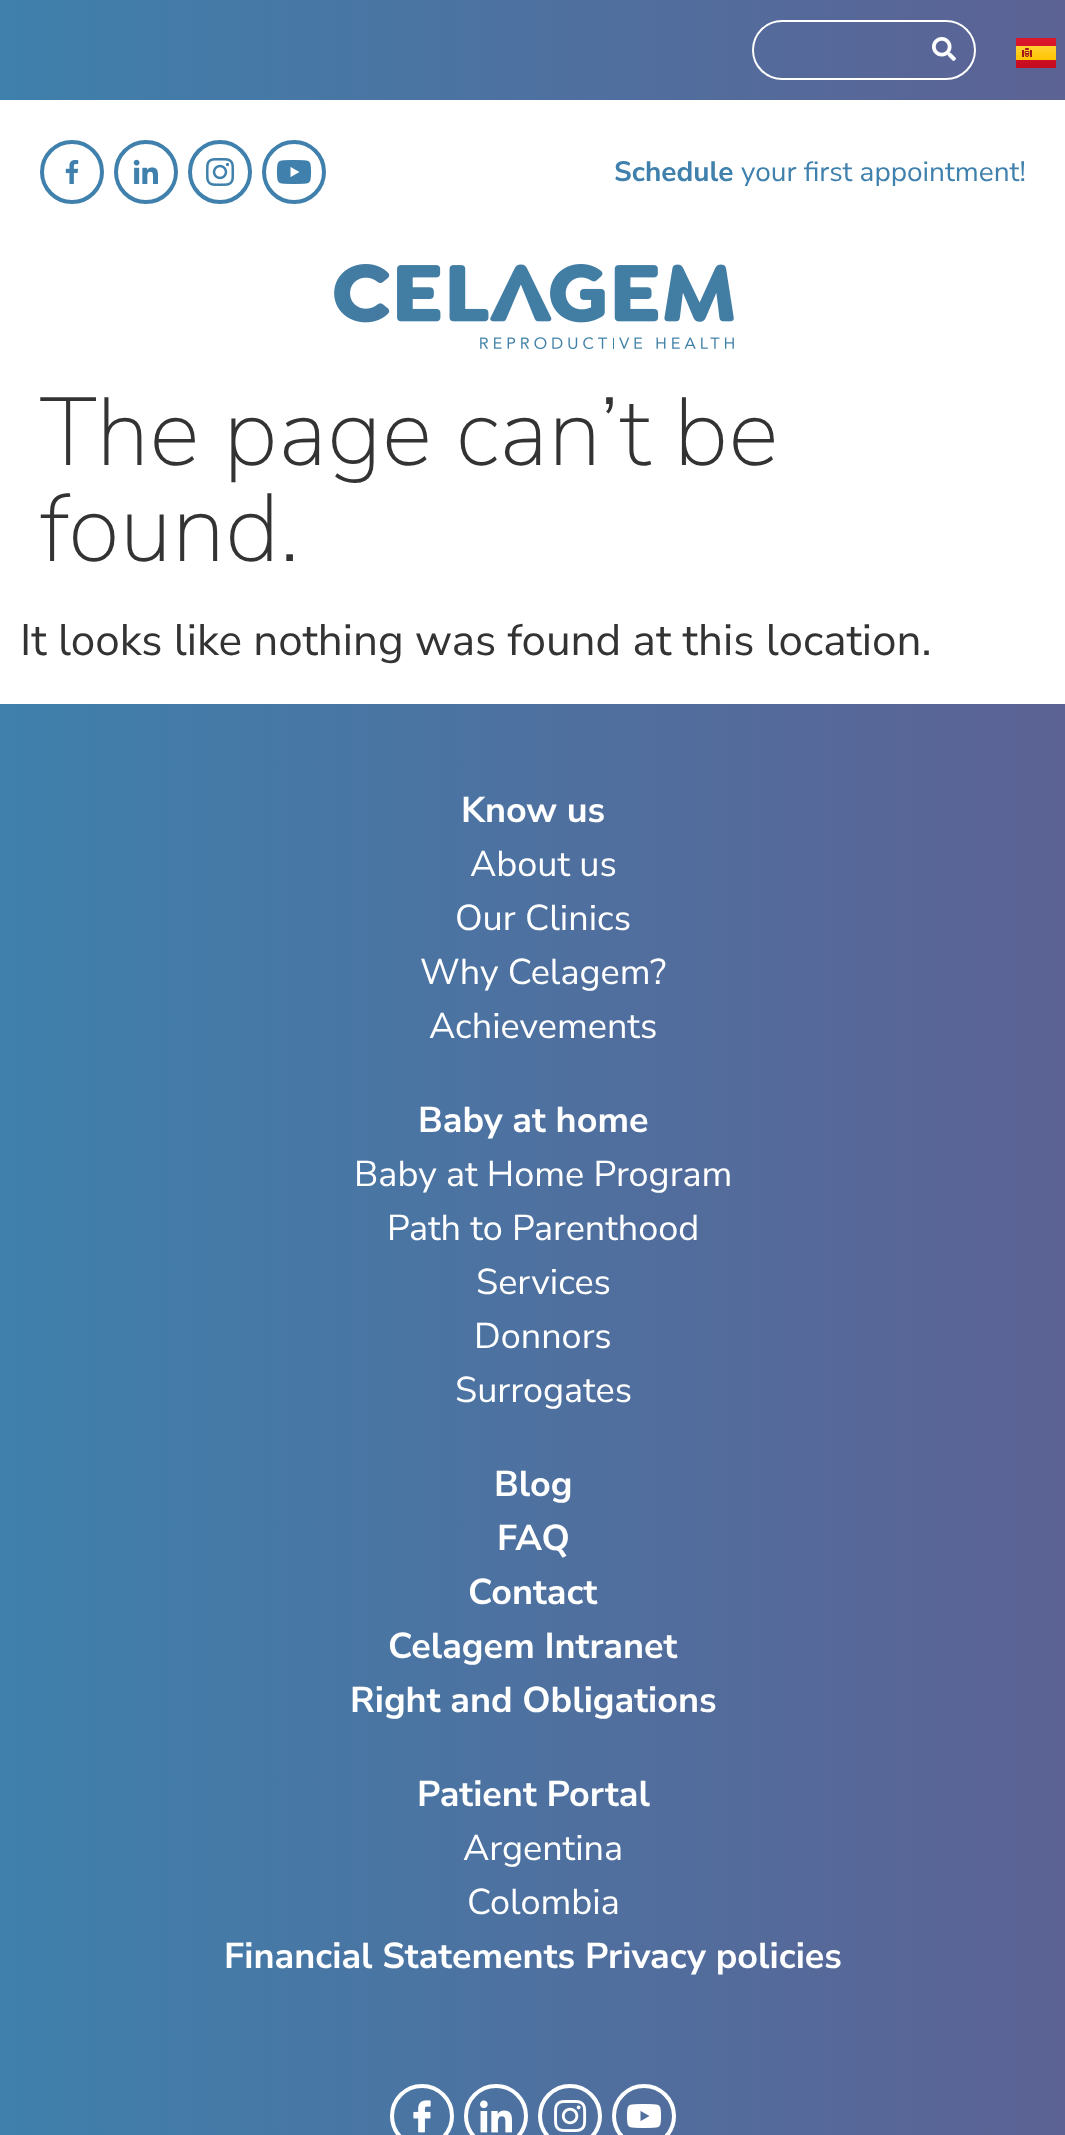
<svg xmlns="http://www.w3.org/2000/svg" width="1065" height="2135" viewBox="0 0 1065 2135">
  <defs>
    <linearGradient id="g1" gradientUnits="userSpaceOnUse" x1="0" y1="50" x2="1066" y2="50"><stop offset="0" stop-color="#3f80ac"/><stop offset="1" stop-color="#5c6294"/></linearGradient>
    <linearGradient id="g2" gradientUnits="userSpaceOnUse" x1="0" y1="1354" x2="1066" y2="1354"><stop offset="0" stop-color="#3f80ac"/><stop offset="1" stop-color="#5c6294"/></linearGradient>
    <linearGradient id="g3" gradientUnits="userSpaceOnUse" x1="0" y1="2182" x2="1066" y2="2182"><stop offset="0" stop-color="#3f80ac"/><stop offset="1" stop-color="#5c6294"/></linearGradient>
  </defs>
  <rect width="100%" height="100%" fill="#fff"/>
  <path d="M0 0h1065v100H0z" fill="url(#g1)"/>
  <rect x="753" y="21" width="222" height="58" rx="29" fill="none" stroke="#fff" stroke-width="2"/>
  <image x="932" y="37" width="24" height="24" href="img/1.png"/>
  <image x="1016" y="38" width="40" height="30" href="img/2.png"/>
  <circle cx="72" cy="172" r="30" fill="none" stroke="#3f80ac" stroke-width="4"/>
  <image x="65" y="160" width="14" height="24" href="img/3.png"/>
  <circle cx="146" cy="172" r="30" fill="none" stroke="#3f80ac" stroke-width="4"/>
  <image x="133" y="159" width="25" height="25" href="img/4.png"/>
  <circle cx="220" cy="172" r="30" fill="none" stroke="#3f80ac" stroke-width="4"/>
  <image x="206" y="157" width="29" height="29" href="img/5.png"/>
  <circle cx="294" cy="172" r="30" fill="none" stroke="#3f80ac" stroke-width="4"/>
  <image x="276" y="160" width="36" height="24" href="img/6.png"/>
  <image x="334" y="264" width="400" height="85" href="img/7.png"/>
  <path d="M0 704h1065v1300H0z" fill="url(#g2)"/>
  <path d="M0 2004h1065v131H0z" fill="url(#g3)"/>
  <circle cx="422" cy="2116" r="30" fill="none" stroke="#fff" stroke-width="4"/>
  <image x="413" y="2100" width="18" height="33" href="img/8.png"/>
  <circle cx="496" cy="2116" r="30" fill="none" stroke="#fff" stroke-width="4"/>
  <image x="480" y="2100" width="32" height="33" href="img/9.png"/>
  <circle cx="570" cy="2116" r="30" fill="none" stroke="#fff" stroke-width="4"/>
  <image x="554" y="2100" width="33" height="32" href="img/10.png"/>
  <circle cx="644" cy="2116" r="30" fill="none" stroke="#fff" stroke-width="4"/>
  <image x="626" y="2104" width="36" height="24" href="img/11.png"/>
  <text x="614" y="181" font-family="Nunito Sans" font-size="28" font-weight="bold" fill="#3f80ac">Schedule</text>
  <text x="741" y="181" font-family="Nunito Sans" font-size="28" fill="#3f80ac">your first appointment!</text>
  <g font-family="Nunito Sans" font-size="96" font-weight="200" fill="#333">
    <text x="40" y="465">The page can’t be</text>
    <text x="40" y="561">found.</text>
  </g>
  <text x="20" y="655" font-family="Nunito Sans" font-size="44" fill="#333">It looks like nothing was found at this location.</text>
  <text x="461" y="822" font-family="Nunito Sans" font-size="36" font-weight="bold" fill="#fff">Know us</text>
  <g font-family="Nunito Sans" font-size="36" fill="#fff">
    <text x="470" y="876">About us</text>
    <text x="455" y="930">Our Clinics</text>
    <text x="420" y="984">Why Celagem?</text>
    <text x="429" y="1038">Achievements</text>
  </g>
  <text x="418" y="1132" font-family="Nunito Sans" font-size="36" font-weight="bold" fill="#fff">Baby at home</text>
  <g font-family="Nunito Sans" font-size="36" fill="#fff">
    <text x="354" y="1186">Baby at Home Program</text>
    <text x="387" y="1240">Path to Parenthood</text>
    <text x="476" y="1294">Services</text>
    <text x="474" y="1348">Donnors</text>
    <text x="455" y="1402">Surrogates</text>
  </g>
  <g font-family="Nunito Sans" font-size="36" font-weight="bold" fill="#fff">
    <text x="494" y="1496">Blog</text>
    <text x="497" y="1550">FAQ</text>
    <text x="468" y="1604">Contact</text>
    <text x="388" y="1658">Celagem Intranet</text>
    <text x="350" y="1712">Right and Obligations</text>
    <text x="417" y="1806">Patient Portal</text>
  </g>
  <g font-family="Nunito Sans" font-size="36" fill="#fff">
    <text x="463" y="1860">Argentina</text>
    <text x="467" y="1914">Colombia</text>
  </g>
  <g font-family="Nunito Sans" font-size="36" font-weight="bold" fill="#fff">
    <text x="224" y="1968">Financial Statements</text>
    <text x="585" y="1968">Privacy policies</text>
  </g>
</svg>
